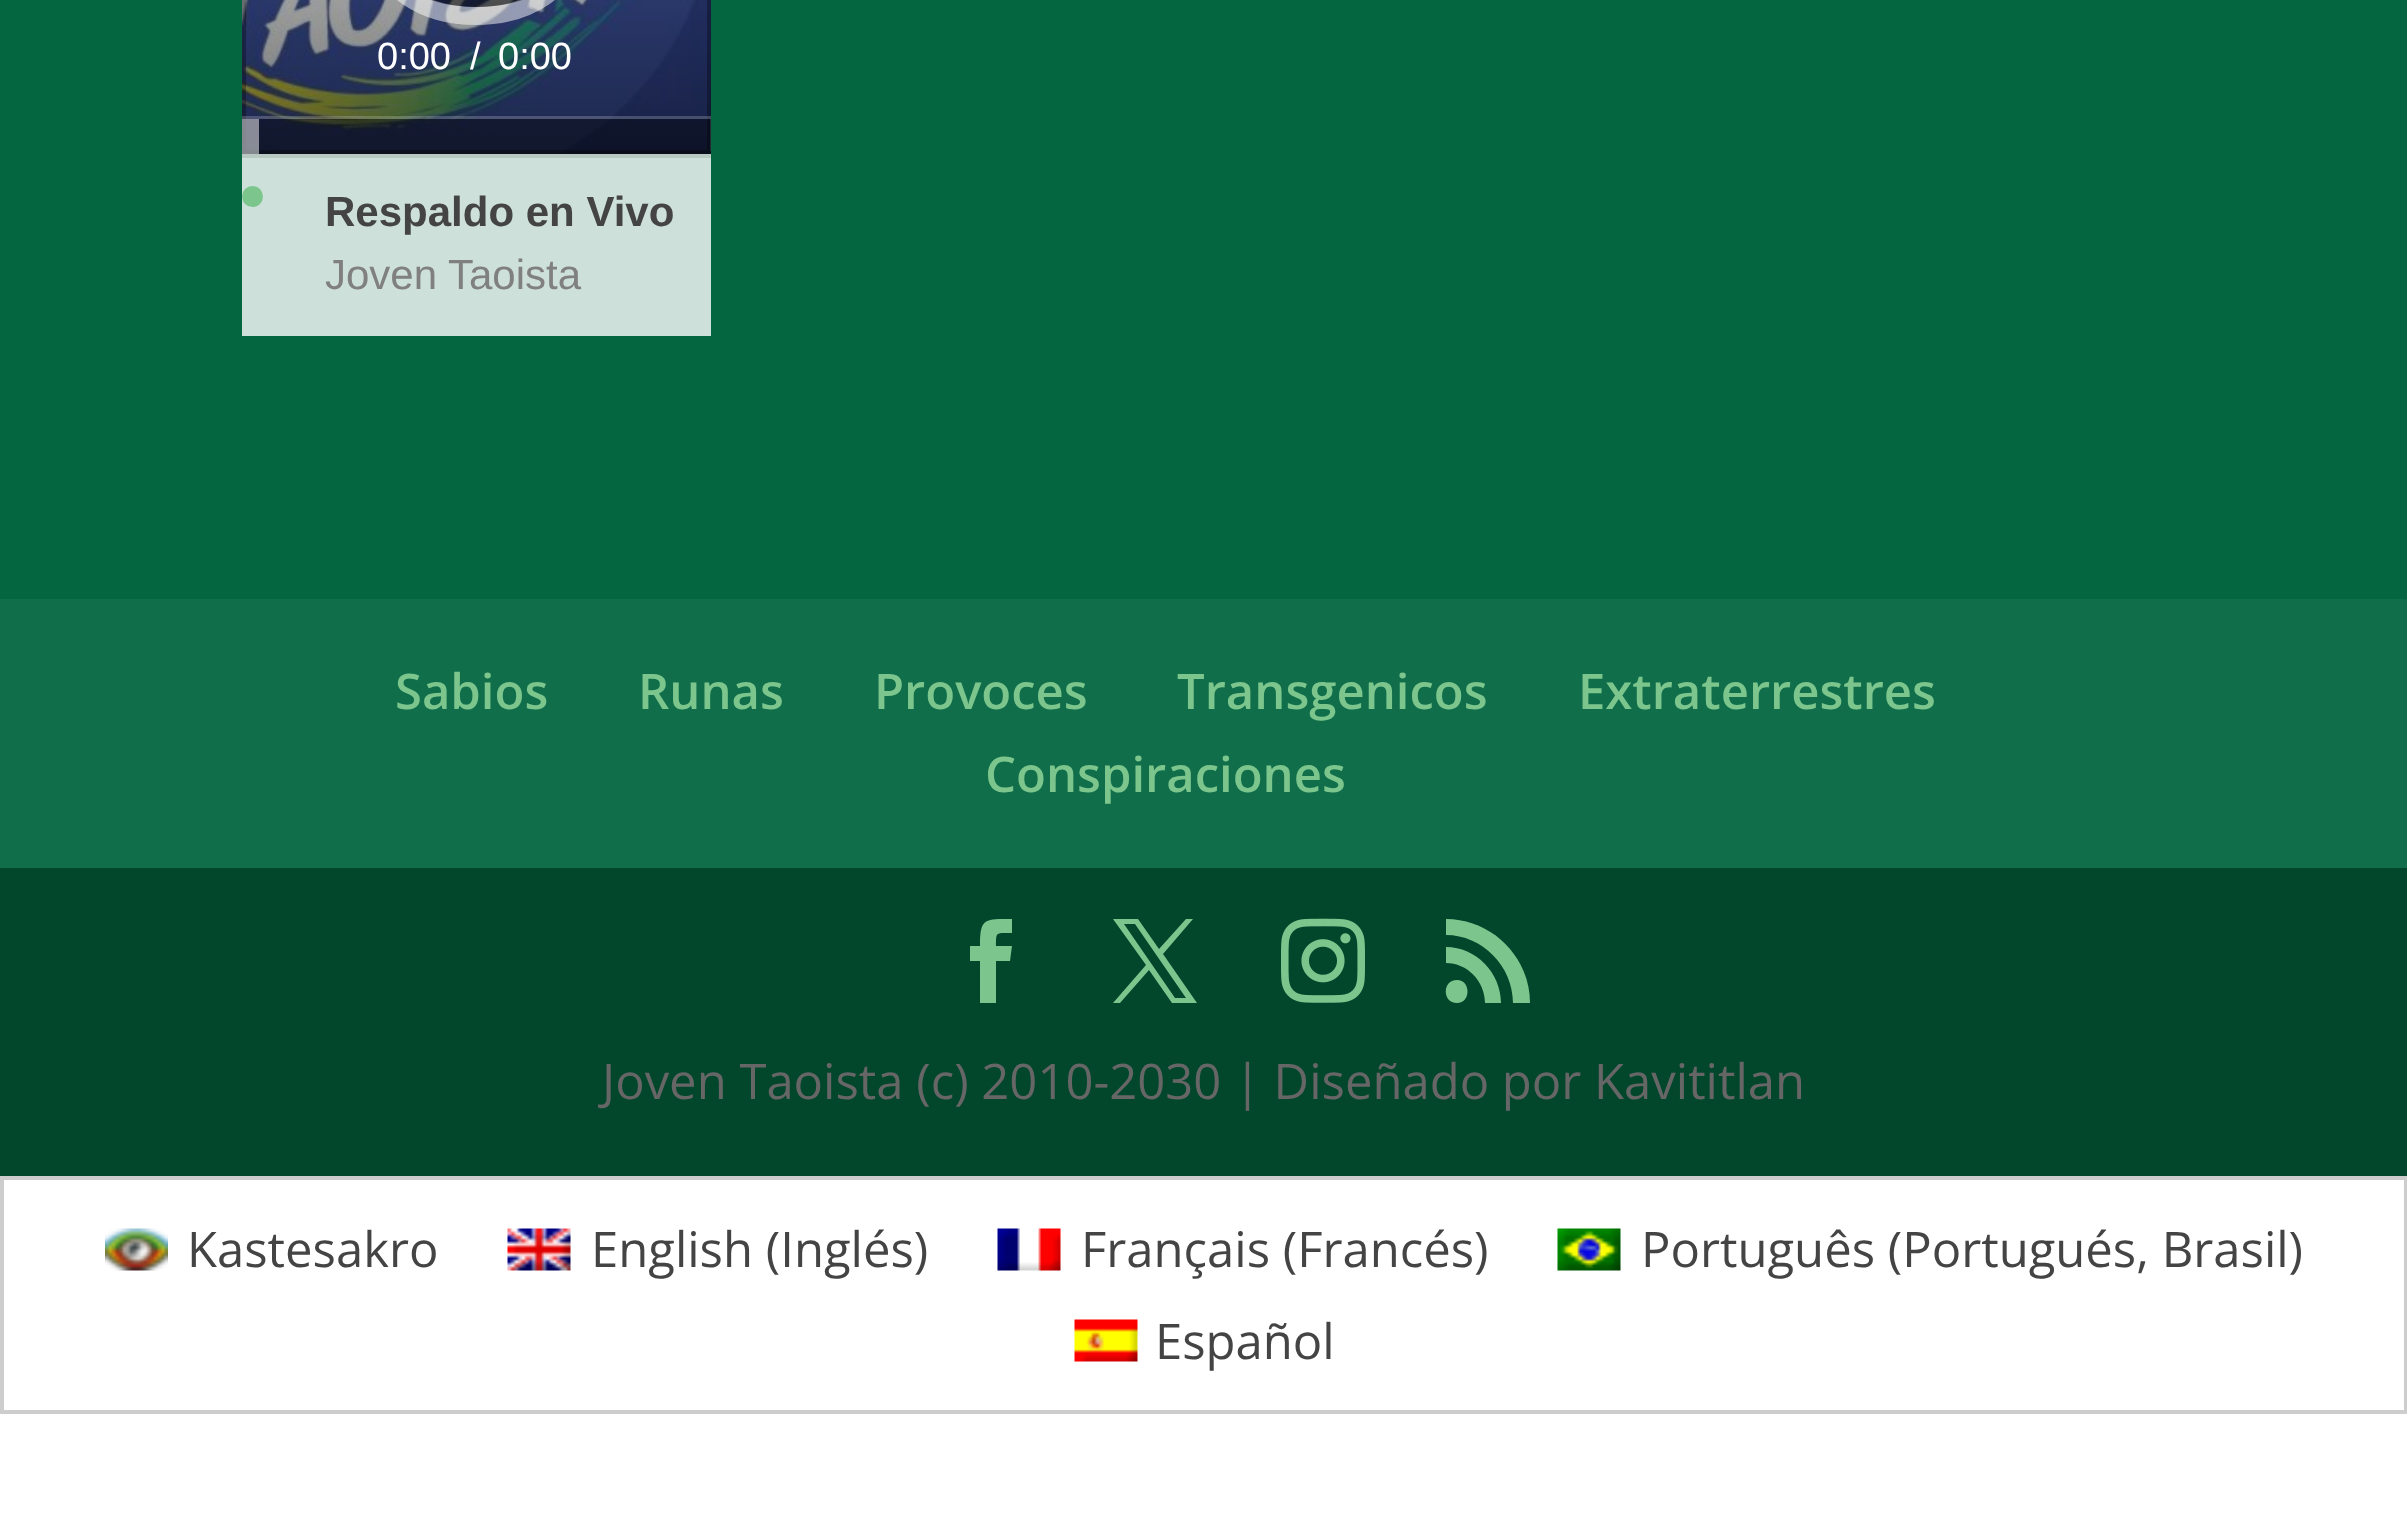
<svg xmlns="http://www.w3.org/2000/svg" width="2407" height="1516" viewBox="0 0 2407 1516">
  <rect width="100%" height="100%" fill="#fff"/>
  <path d="M0 0h2407v599H0z" fill="#036640"/>
  <path d="M242 154h469v182H242z" fill="#cde0d9"/>
  <path d="M242 154V158H711V-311H710V154Z" fill="#0000001a"/>
  <image x="242" y="0" width="469" height="154" href="img/1.png"/>
  <path d="M244 -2h465v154H244z" fill="none" stroke="#0000004d" stroke-width="4"/>
  <rect x="380" y="-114" width="192" height="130" rx="96" fill="none" stroke="#ffffff80" stroke-width="18"/>
  <rect x="389" y="-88" width="175" height="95" rx="87.5" fill="#00000080"/>
  <path d="M242 116V119H710V151H711V116Z" fill="#ffffff33"/>
  <path d="M242 119h469v35H242z" fill="#00000066"/>
  <path d="M242 119h17v35H242z" fill="#ffffff80"/>
  <circle cx="252.5" cy="196.5" r="10.5" fill="#7cc68d"/>
  <path d="M0 599h2407v269H0z" fill="#106f4a"/>
  <path d="M0 868h2407v308H0z" fill="#02462c"/>
  <path d="M980 1003H996V961H1010L1012 946H996C996 931 996 933 1012 933V919C984 919 980 918 980 946H970V961H980Z" fill="#7cc68d"/>
  <path d="M1113 919L1146 965L1113 1003H1120L1149 970L1172 1003H1197L1163 954L1193 919H1186L1159 949L1138 919ZM1124 924H1135L1186 998H1175Z" fill="#7cc68d"/>
  <image x="1281" y="918" width="84" height="85" href="img/2.png"/>
  <path d="M1446 919V935C1482 935 1513 966 1513 1003H1530C1530 957 1492 919 1446 919ZM1485 1003H1501C1501 973 1476 947 1446 947V963C1467 963 1485 981 1485 1003ZM1457 1003C1471 1003 1471 980 1457 980C1442 980 1442 1003 1457 1003Z" fill="#7cc68d"/>
  <path d="M2 1178h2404v234H2z" fill="none" stroke="#cdcdcd" stroke-width="4"/>
  <image x="105" y="1228" width="63" height="43" href="img/3.png"/>
  <image x="507" y="1228" width="64" height="43" href="img/4.png"/>
  <image x="997" y="1228" width="64" height="43" href="img/5.png"/>
  <image x="1557" y="1228" width="64" height="43" href="img/6.png"/>
  <image x="1074" y="1319" width="64" height="43" href="img/7.png"/>
  <g font-family="Liberation Sans" font-size="38" fill="#fff">
    <text x="377" y="69">0:00</text>
    <text x="470" y="69">/</text>
    <text x="498" y="69">0:00</text>
  </g>
  <text x="325" y="226" font-family="Liberation Sans" font-size="42" font-weight="bold" fill="#444">Respaldo en Vivo</text>
  <text x="325" y="289" font-family="Liberation Sans" font-size="42" fill="#808080">Joven Taoista</text>
  <g font-family="Open Sans" font-size="49" font-weight="600" fill="#7cc68d">
    <text x="395" y="709">Sabios</text>
    <text x="638" y="709">Runas</text>
    <text x="874" y="709">Provoces</text>
    <text x="1177" y="709">Transgenicos</text>
    <text x="1578" y="709">Extraterrestres</text>
    <text x="985" y="792">Conspiraciones</text>
  </g>
  <text x="602" y="1099" font-family="Open Sans" font-size="49" fill="#666">Joven Taoista (c) 2010-2030 | Diseñado por Kavititlan</text>
  <g font-family="Open Sans" font-size="49" fill="#444">
    <text x="187" y="1267">Kastesakro</text>
    <text x="591" y="1267">English (Inglés)</text>
    <text x="1081" y="1267">Français (Francés)</text>
    <text x="1641" y="1267">Português (Portugués, Brasil)</text>
    <text x="1155" y="1359">Español</text>
  </g>
</svg>
